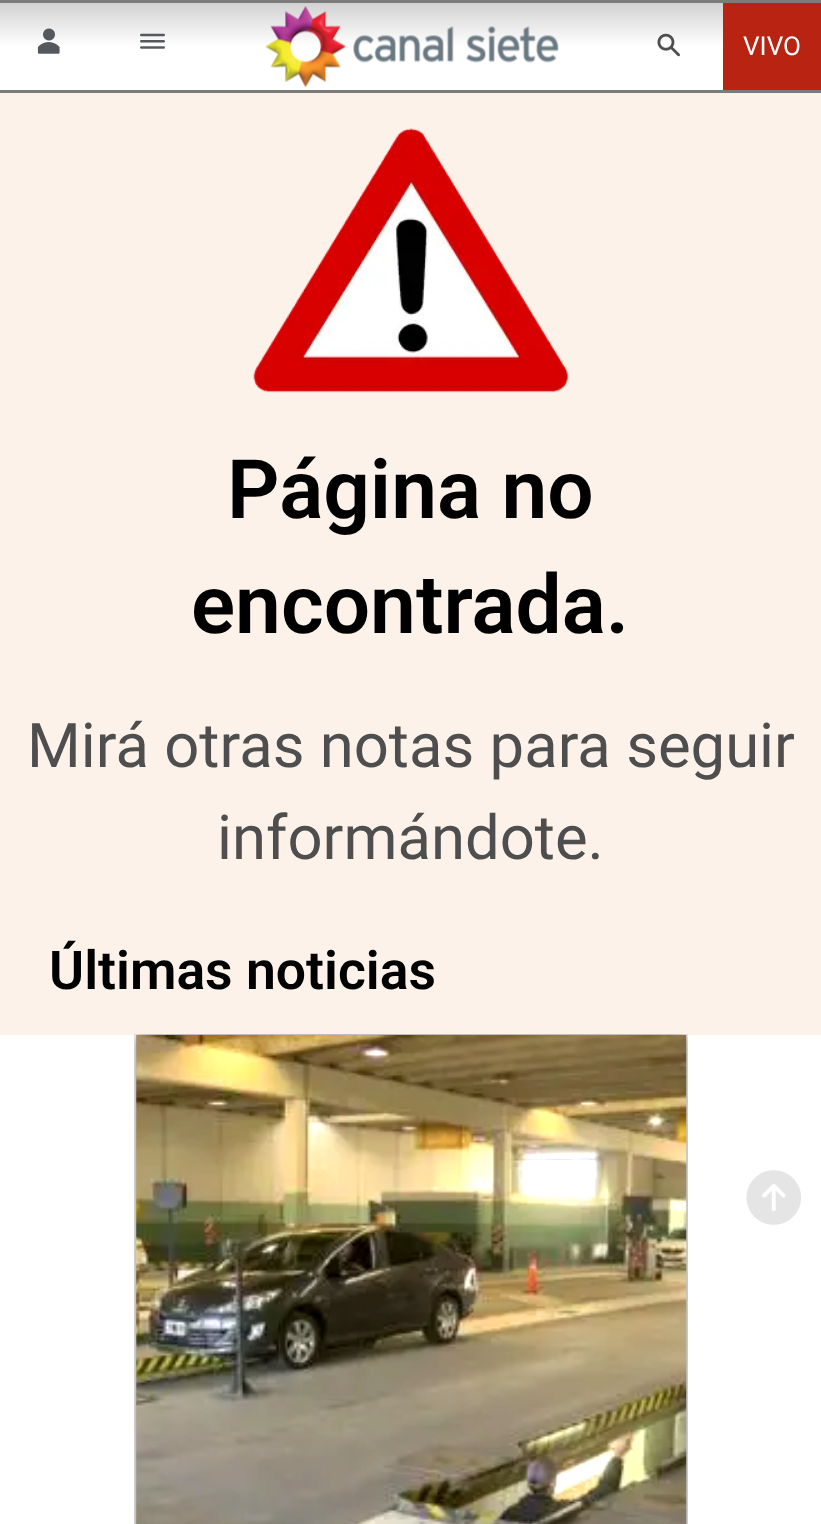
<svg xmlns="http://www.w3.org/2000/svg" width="821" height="1524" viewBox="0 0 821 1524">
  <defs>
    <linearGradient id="g1" gradientUnits="userSpaceOnUse" x1="411" y1="2.5" x2="411" y2="90"><stop offset="0" stop-color="#d1d1d1"/><stop offset="0.5" stop-color="#fff"/><stop offset="1" stop-color="#fff"/></linearGradient>
  </defs>
  <rect width="100%" height="100%" fill="#fcf2e9"/>
  <path d="M0 3h723v87H0z" fill="url(#g1)"/>
  <path d="M0 0h821v3H0z" fill="#7b7b7b"/>
  <path d="M0 90h821v3H0z" fill="#7b7b7b"/>
  <image x="37" y="28" width="23" height="26" href="img/1.png"/>
  <image x="140" y="33" width="25" height="16" href="img/2.png"/>
  <image x="265" y="6" width="294" height="82" href="img/3.png"/>
  <image x="657" y="33" width="23" height="24" href="img/4.png"/>
  <path d="M723 3h98v87H723z" fill="#b82312"/>
  <image x="253" y="128" width="316" height="265" href="img/5.png"/>
  <path d="M0 1035h821v489H0z" fill="#fff"/>
  <image x="134" y="1034" width="554" height="490" href="img/6.png"/>
  <image x="746" y="1170" width="55" height="55" href="img/7.png"/>
  <text x="743" y="55" font-family="Roboto" font-size="26" fill="#fff">VIVO</text>
  <g font-family="Roboto" font-size="82" font-weight="600" fill="#000">
    <text x="227" y="518">Página no</text>
    <text x="191" y="633">encontrada.</text>
  </g>
  <g font-family="Roboto" font-size="61.6" fill="#4e4e4e">
    <text x="27" y="767">Mirá otras notas para seguir</text>
    <text x="217" y="859">informándote.</text>
  </g>
  <text x="49" y="989" font-family="Roboto" font-size="53.5" font-weight="600" fill="#000">Últimas noticias</text>
</svg>
